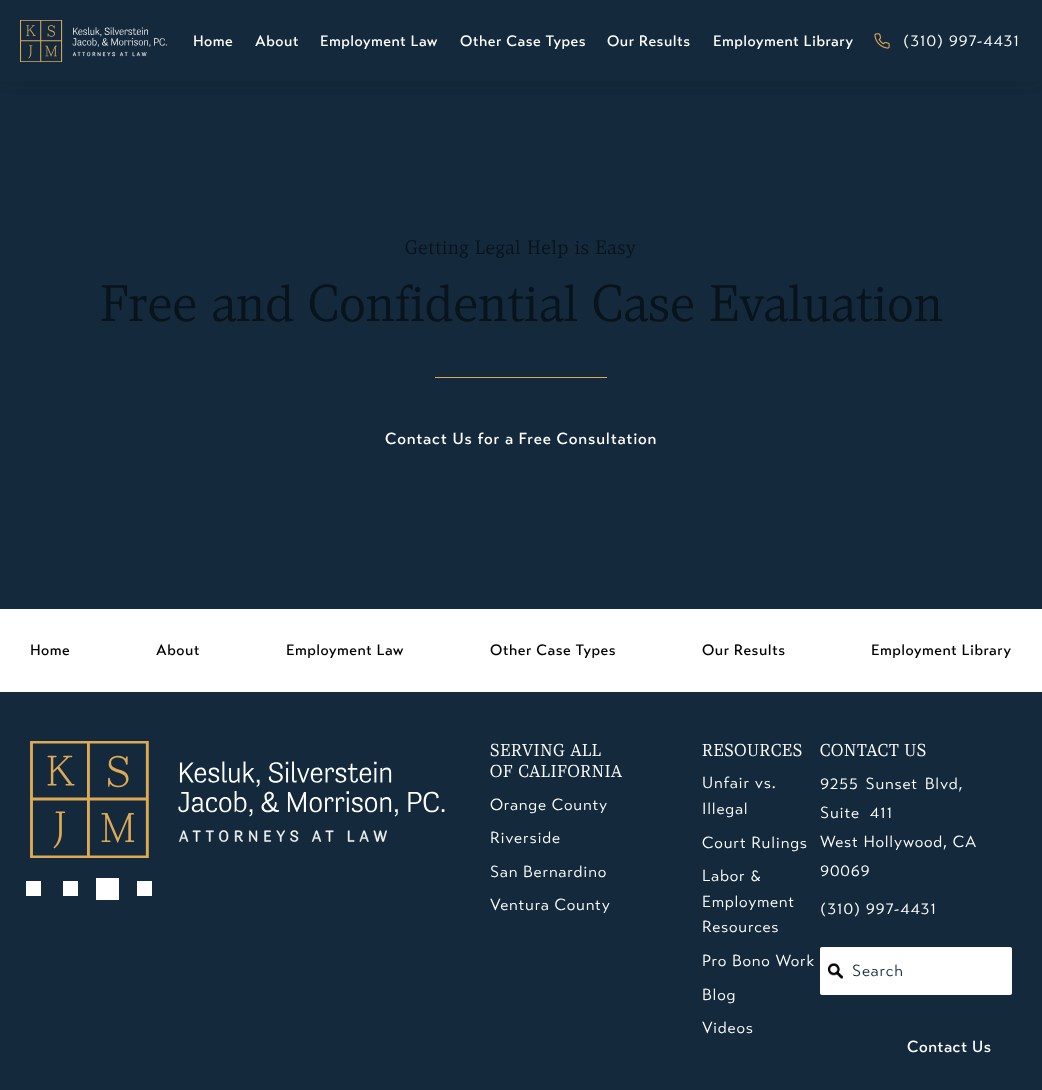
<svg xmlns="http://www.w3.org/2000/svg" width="1042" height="1090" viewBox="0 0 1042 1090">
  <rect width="100%" height="100%" fill="#fff"/>
  <path d="M0 82h1042v527H0z" fill="#142a3c"/>
  <path d="M4 4h1034v74H4z" fill="#14141466" filter="blur(7.5px)"/>
  <path d="M0 0h1042v82H0z" fill="#142a3c"/>
  <image x="20" y="20" width="147" height="42" href="img/1.png"/>
  <image x="874" y="33" width="16" height="16" href="img/2.png"/>
  <path d="M435 377h172v1H435z" fill="#dea957"/>
  <path d="M0 692h1042v398H0z" fill="#142a3c"/>
  <image x="30" y="741" width="415" height="117" href="img/3.png"/>
  <path d="M26 881h15v15H26z" fill="#fff"/>
  <path d="M63 881h15v15H63z" fill="#fff"/>
  <path d="M96 878h23v22H96z" fill="#fff"/>
  <path d="M137 881h15v15H137z" fill="#fff"/>
  <rect x="820" y="947" width="192" height="48" rx="2" fill="#fff"/>
  <image x="828" y="963" width="15" height="16" href="img/4.png"/>
  <g font-family="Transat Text" font-size="15" font-weight="500" letter-spacing="0.5" fill="#fff">
    <text x="193" y="46">Home</text>
    <text x="255" y="46">About</text>
    <text x="320" y="46">Employment Law</text>
    <text x="460" y="46">Other Case Types</text>
    <text x="607" y="46">Our Results</text>
    <text x="713" y="46">Employment Library</text>
  </g>
  <text x="903" y="46" font-family="Transat Text" font-size="16" letter-spacing="0.8" fill="#fff">(310) 997-4431</text>
  <text x="405" y="254" font-family="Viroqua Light" font-size="20" font-weight="300" letter-spacing="0.8" fill="#08131b">Getting Legal Help is Easy</text>
  <text x="100" y="321" font-family="Viroqua Light" font-size="52.7" font-weight="300" letter-spacing="0.8" fill="#08131b">Free and Confidential Case Evaluation</text>
  <text x="385" y="444" font-family="Transat Text" font-size="16" font-weight="500" letter-spacing="0.8" fill="#fff">Contact Us for a Free Consultation</text>
  <g font-family="Transat Text" font-size="15" font-weight="500" letter-spacing="0.5" fill="#000">
    <text x="30" y="655">Home</text>
    <text x="156" y="655">About</text>
    <text x="286" y="655">Employment Law</text>
    <text x="490" y="655">Other Case Types</text>
    <text x="702" y="655">Our Results</text>
    <text x="871" y="655">Employment Library</text>
  </g>
  <g font-family="Viroqua Light" font-size="17.75" font-weight="300" letter-spacing="0.8" fill="#fff">
    <text x="490" y="756">SERVING ALL</text>
    <text x="490" y="777">OF CALIFORNIA</text>
  </g>
  <g font-family="Transat Text" font-size="16" letter-spacing="0.8" fill="#fff">
    <text x="490" y="810">Orange County</text>
    <text x="490" y="843">Riverside</text>
    <text x="490" y="877">San Bernardino</text>
    <text x="490" y="910">Ventura County</text>
  </g>
  <text x="702" y="756" font-family="Viroqua Light" font-size="17.75" font-weight="300" letter-spacing="0.8" fill="#fff">RESOURCES</text>
  <g font-family="Transat Text" font-size="16" letter-spacing="0.8" fill="#fff">
    <text x="702" y="788">Unfair vs.</text>
    <text x="702" y="814">Illegal</text>
    <text x="702" y="848">Court Rulings</text>
    <text x="702" y="881">Labor &amp;</text>
    <text x="702" y="907">Employment</text>
    <text x="702" y="932">Resources</text>
    <text x="702" y="966">Pro Bono Work</text>
    <text x="702" y="1000">Blog</text>
    <text x="702" y="1033">Videos</text>
  </g>
  <text x="820" y="756" font-family="Viroqua Light" font-size="17.75" font-weight="300" letter-spacing="0.8" fill="#fff">CONTACT US</text>
  <g font-family="Transat Text" font-size="16" letter-spacing="0.8" fill="#fff">
    <text x="820" y="789" word-spacing="2">9255 Sunset Blvd,</text>
    <text x="820" y="818" word-spacing="5">Suite 411</text>
    <text x="820" y="847">West Hollywood, CA</text>
    <text x="820" y="876">90069</text>
    <text x="820" y="914">(310) 997-4431</text>
  </g>
  <text x="852" y="976" font-family="Transat Text" font-size="16" letter-spacing="0.8" fill="#142a3c">Search</text>
  <text x="907" y="1052" font-family="Transat Text" font-size="16" font-weight="500" letter-spacing="0.5" fill="#fff">Contact Us</text>
</svg>
